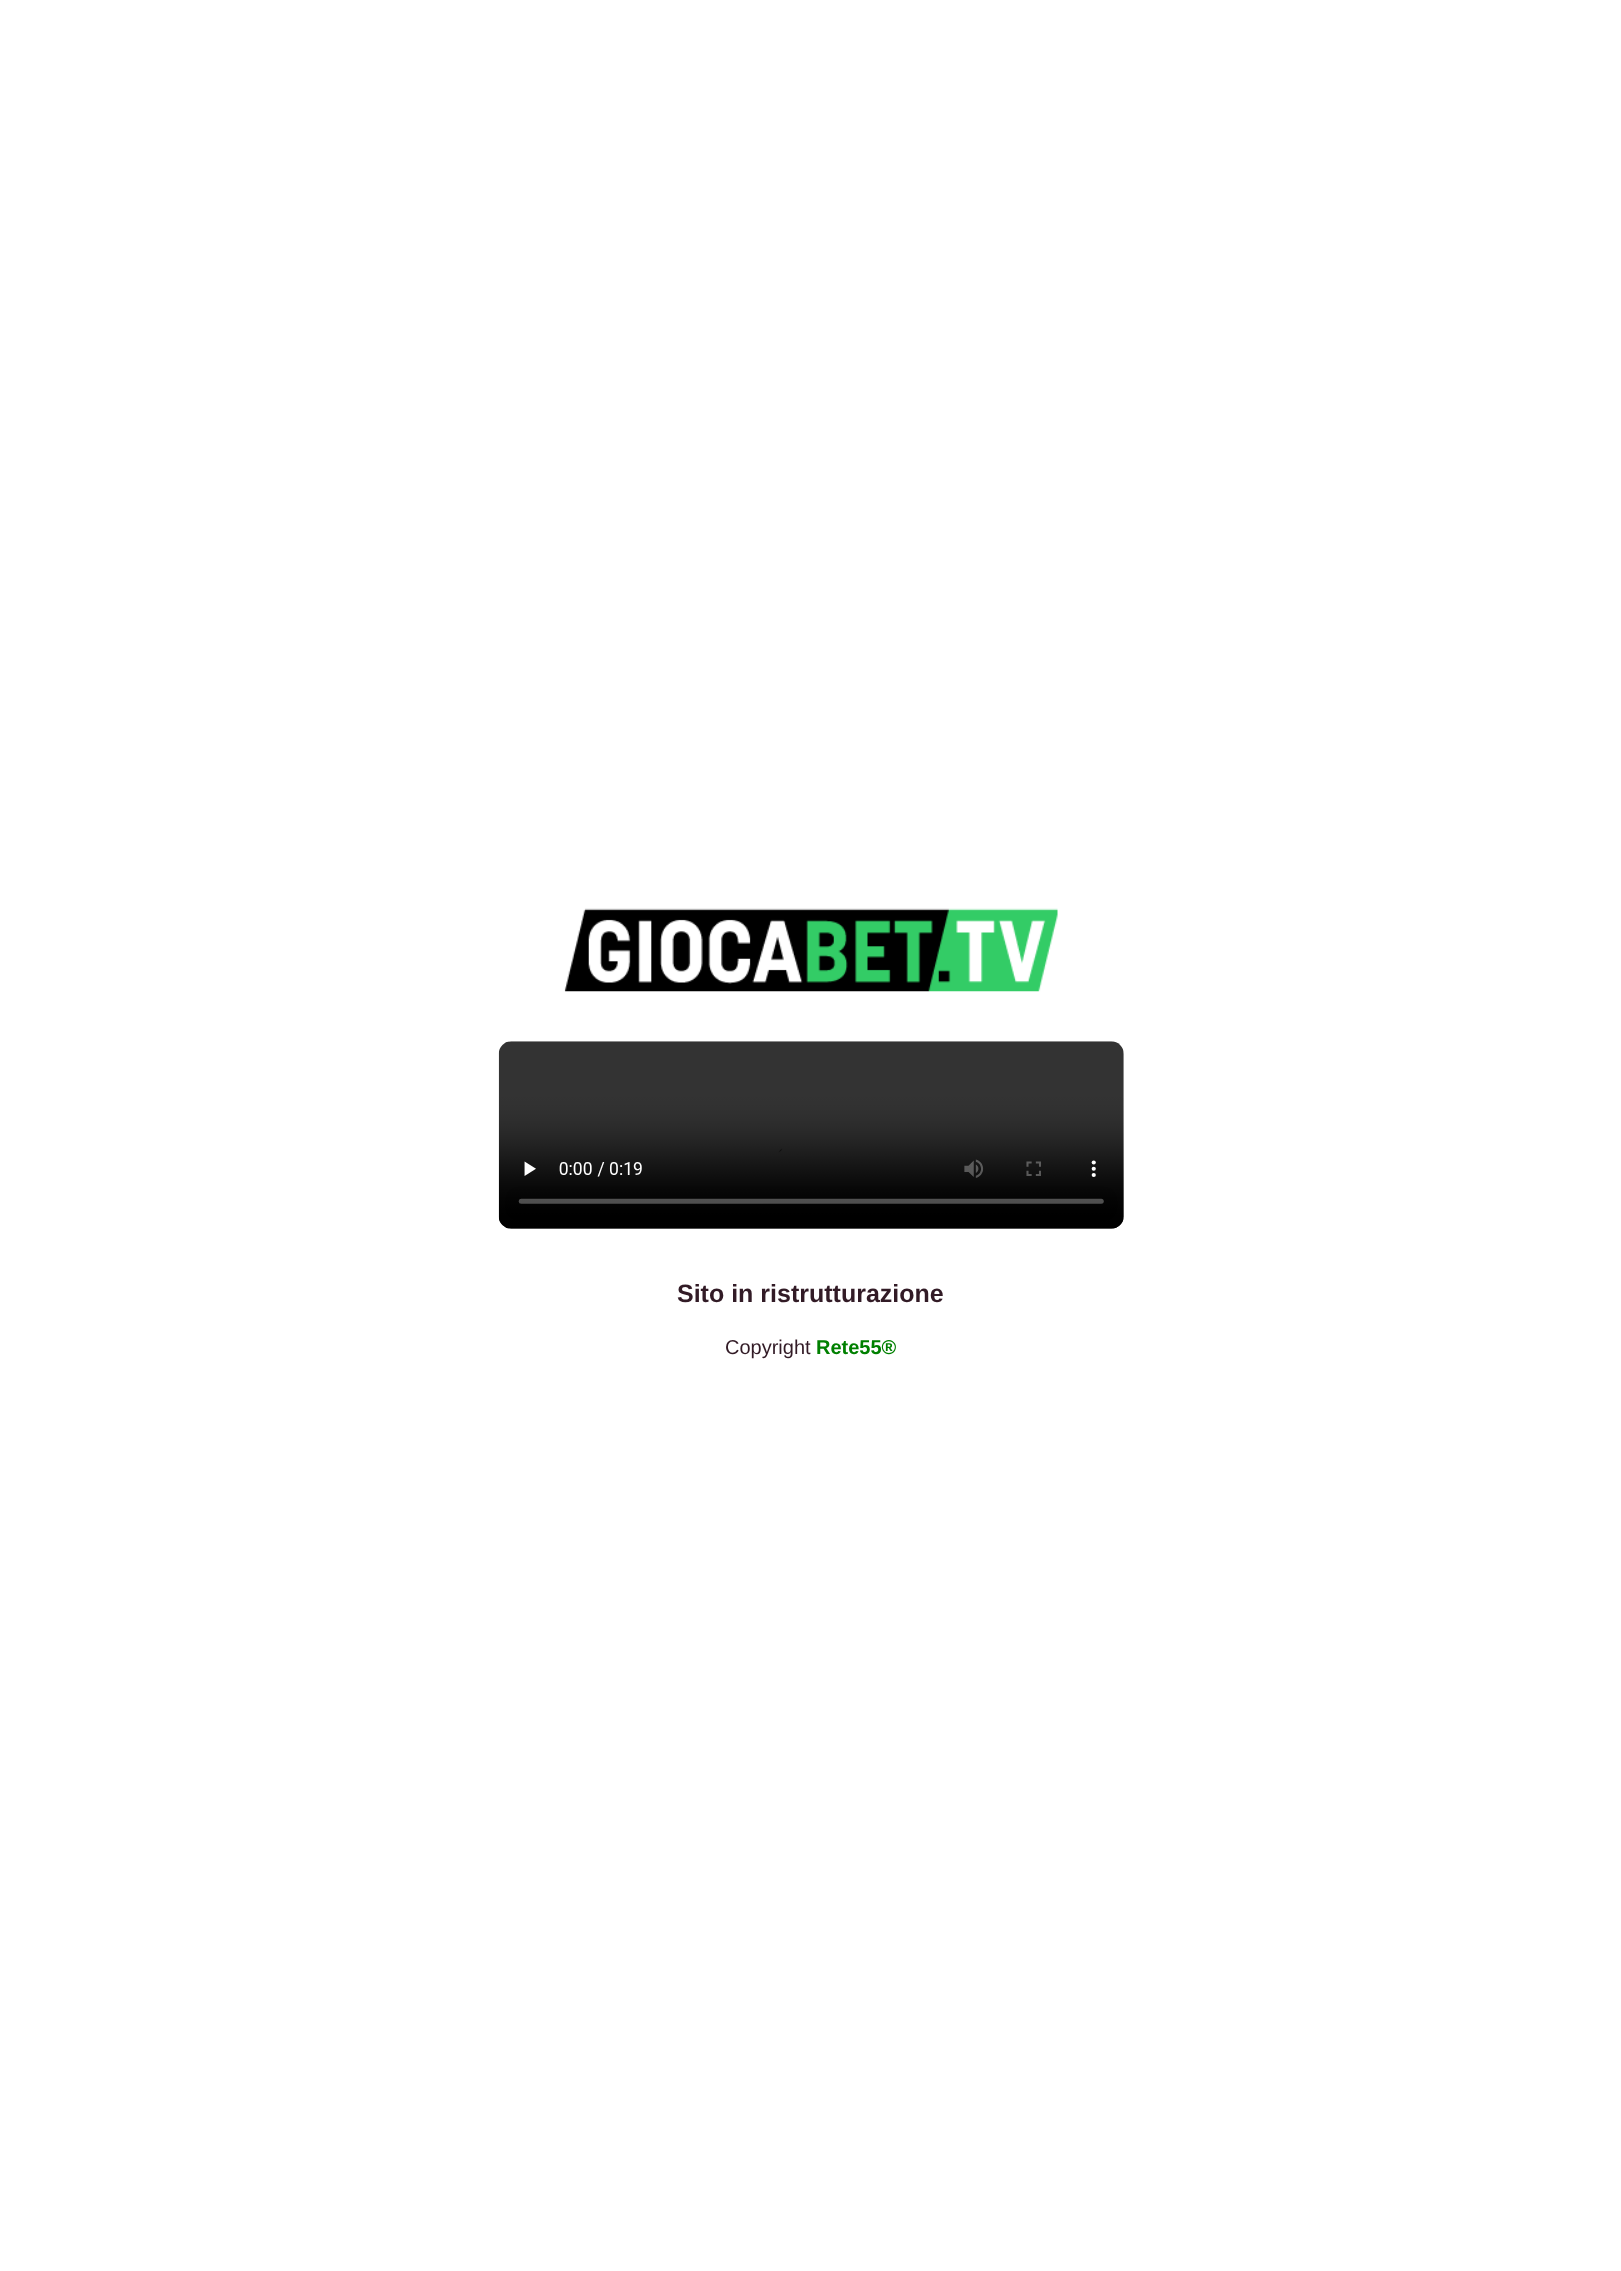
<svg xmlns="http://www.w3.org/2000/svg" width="1621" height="2271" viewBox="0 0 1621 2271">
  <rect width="100%" height="100%" fill="#fff"/>
  <image x="564" y="908" width="494" height="84" href="img/1.png"/>
  <image x="498" y="1041" width="626" height="188" href="img/2.png"/>
  <text x="677" y="1302" font-family="Liberation Sans" font-size="25" font-weight="bold" fill="#321b26">Sito in ristrutturazione</text>
  <text x="725" y="1354" font-family="Liberation Sans" font-size="20" fill="#321b26">Copyright</text>
  <text x="816" y="1354" font-family="Liberation Sans" font-size="20" font-weight="bold" fill="#008000">Rete55®</text>
</svg>
